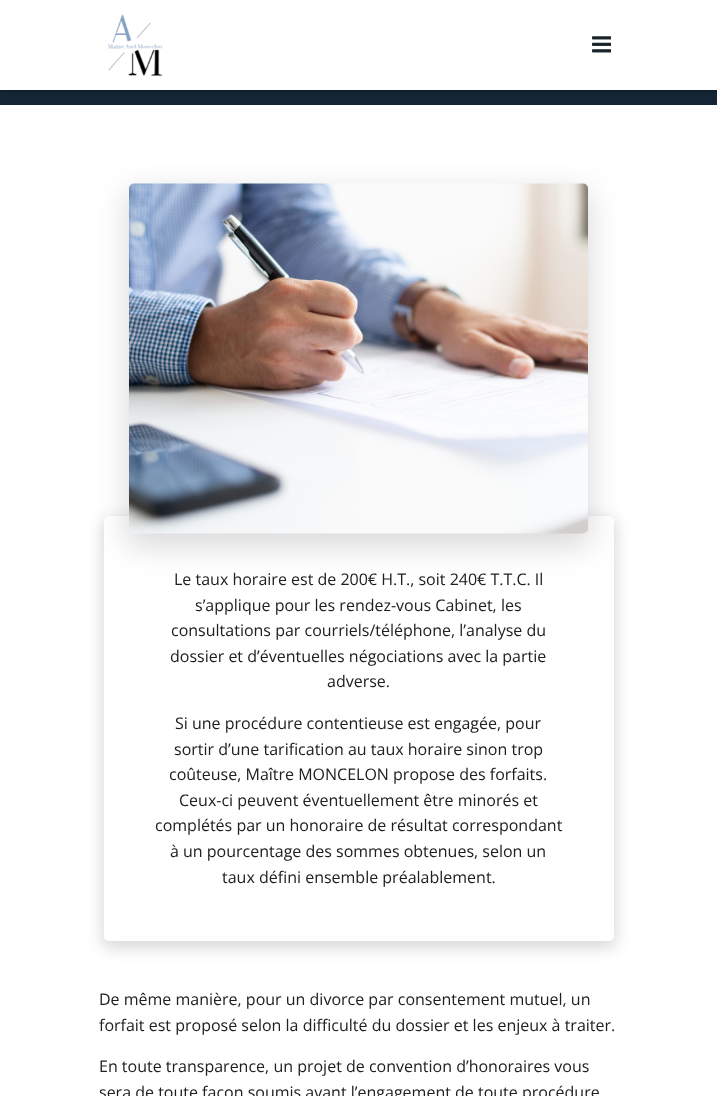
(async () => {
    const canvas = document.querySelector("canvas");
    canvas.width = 717;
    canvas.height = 1096;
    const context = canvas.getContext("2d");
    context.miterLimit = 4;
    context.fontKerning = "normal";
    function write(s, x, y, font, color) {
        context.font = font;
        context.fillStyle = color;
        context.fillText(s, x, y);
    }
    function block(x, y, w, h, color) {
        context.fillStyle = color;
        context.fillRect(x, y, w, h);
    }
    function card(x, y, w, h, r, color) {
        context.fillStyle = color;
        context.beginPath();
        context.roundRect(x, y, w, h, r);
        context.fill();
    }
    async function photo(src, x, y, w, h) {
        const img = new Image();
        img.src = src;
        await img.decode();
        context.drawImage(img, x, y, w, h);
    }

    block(0, 0, 717, 1096, "rgb(255, 255, 255)");
    block(0, 90, 717, 15, "rgb(20, 38, 53)");
    context.fillStyle = "rgba(0, 0, 0, 0.5)";
    context.filter = "blur(2px)";
    context.beginPath();
    context.rect(0, 0, 717, 90);
    context.fill();
    context.filter = "none";
    block(0, 0, 717, 90, "rgb(255, 255, 255)");
    await photo("media/1.png", 107, 14, 56, 62);
    await photo("media/2.png", 592, 36, 19, 17);
    context.fillStyle = "rgba(0, 0, 0, 0.15)";
    context.filter = "blur(7.5px)";
    context.beginPath();
    context.roundRect(102, 519, 514, 429, 7);
    context.fill();
    context.filter = "none";
    card(104, 516, 510, 425, 5, "rgb(255, 255, 255)");
    context.fillStyle = "rgba(0, 0, 0, 0.15)";
    context.filter = "blur(15px)";
    context.beginPath();
    context.roundRect(127, 192, 463, 354, 7);
    context.fill();
    context.filter = "none";
    await photo("media/3.png", 128, 183, 460, 351);
    write("Le taux horaire est de 200€ H.T., soit 240€ T.T.C. Il", 174, 585, "16px Open Sans", "rgb(32, 32, 34)");
    write("s’applique pour les rendez-vous Cabinet, les", 195, 611, "16px Open Sans", "rgb(32, 32, 34)");
    write("consultations par courriels/téléphone, l’analyse du", 171, 636, "16px Open Sans", "rgb(32, 32, 34)");
    write("dossier et d’éventuelles négociations avec la partie", 170, 662, "16px Open Sans", "rgb(32, 32, 34)");
    write("adverse.", 327, 687, "16px Open Sans", "rgb(32, 32, 34)");
    write("Si une procédure contentieuse est engagée, pour", 175, 729, "16px Open Sans", "rgb(32, 32, 34)");
    write("sortir d’une tarification au taux horaire sinon trop", 174, 755, "16px Open Sans", "rgb(32, 32, 34)");
    write("coûteuse, Maître MONCELON propose des forfaits.", 169, 780, "16px Open Sans", "rgb(32, 32, 34)");
    write("Ceux-ci peuvent éventuellement être minorés et", 179, 806, "16px Open Sans", "rgb(32, 32, 34)");
    write("complétés par un honoraire de résultat correspondant", 155, 831, "16px Open Sans", "rgb(32, 32, 34)");
    write("à un pourcentage des sommes obtenues, selon un", 170, 857, "16px Open Sans", "rgb(32, 32, 34)");
    write("taux défini ensemble préalablement.", 222, 883, "16px Open Sans", "rgb(32, 32, 34)");
    write("De même manière, pour un divorce par consentement mutuel, un", 99, 1005, "16px Open Sans", "rgb(32, 32, 34)");
    write("forfait est proposé selon la difficulté du dossier et les enjeux à traiter.", 99, 1031, "16px Open Sans", "rgb(32, 32, 34)");
    write("En toute transparence, un projet de convention d’honoraires vous", 99, 1072, "16px Open Sans", "rgb(32, 32, 34)");
    write("sera de toute façon soumis avant l’engagement de toute procédure", 99, 1098, "16px Open Sans", "rgb(32, 32, 34)");
})();
